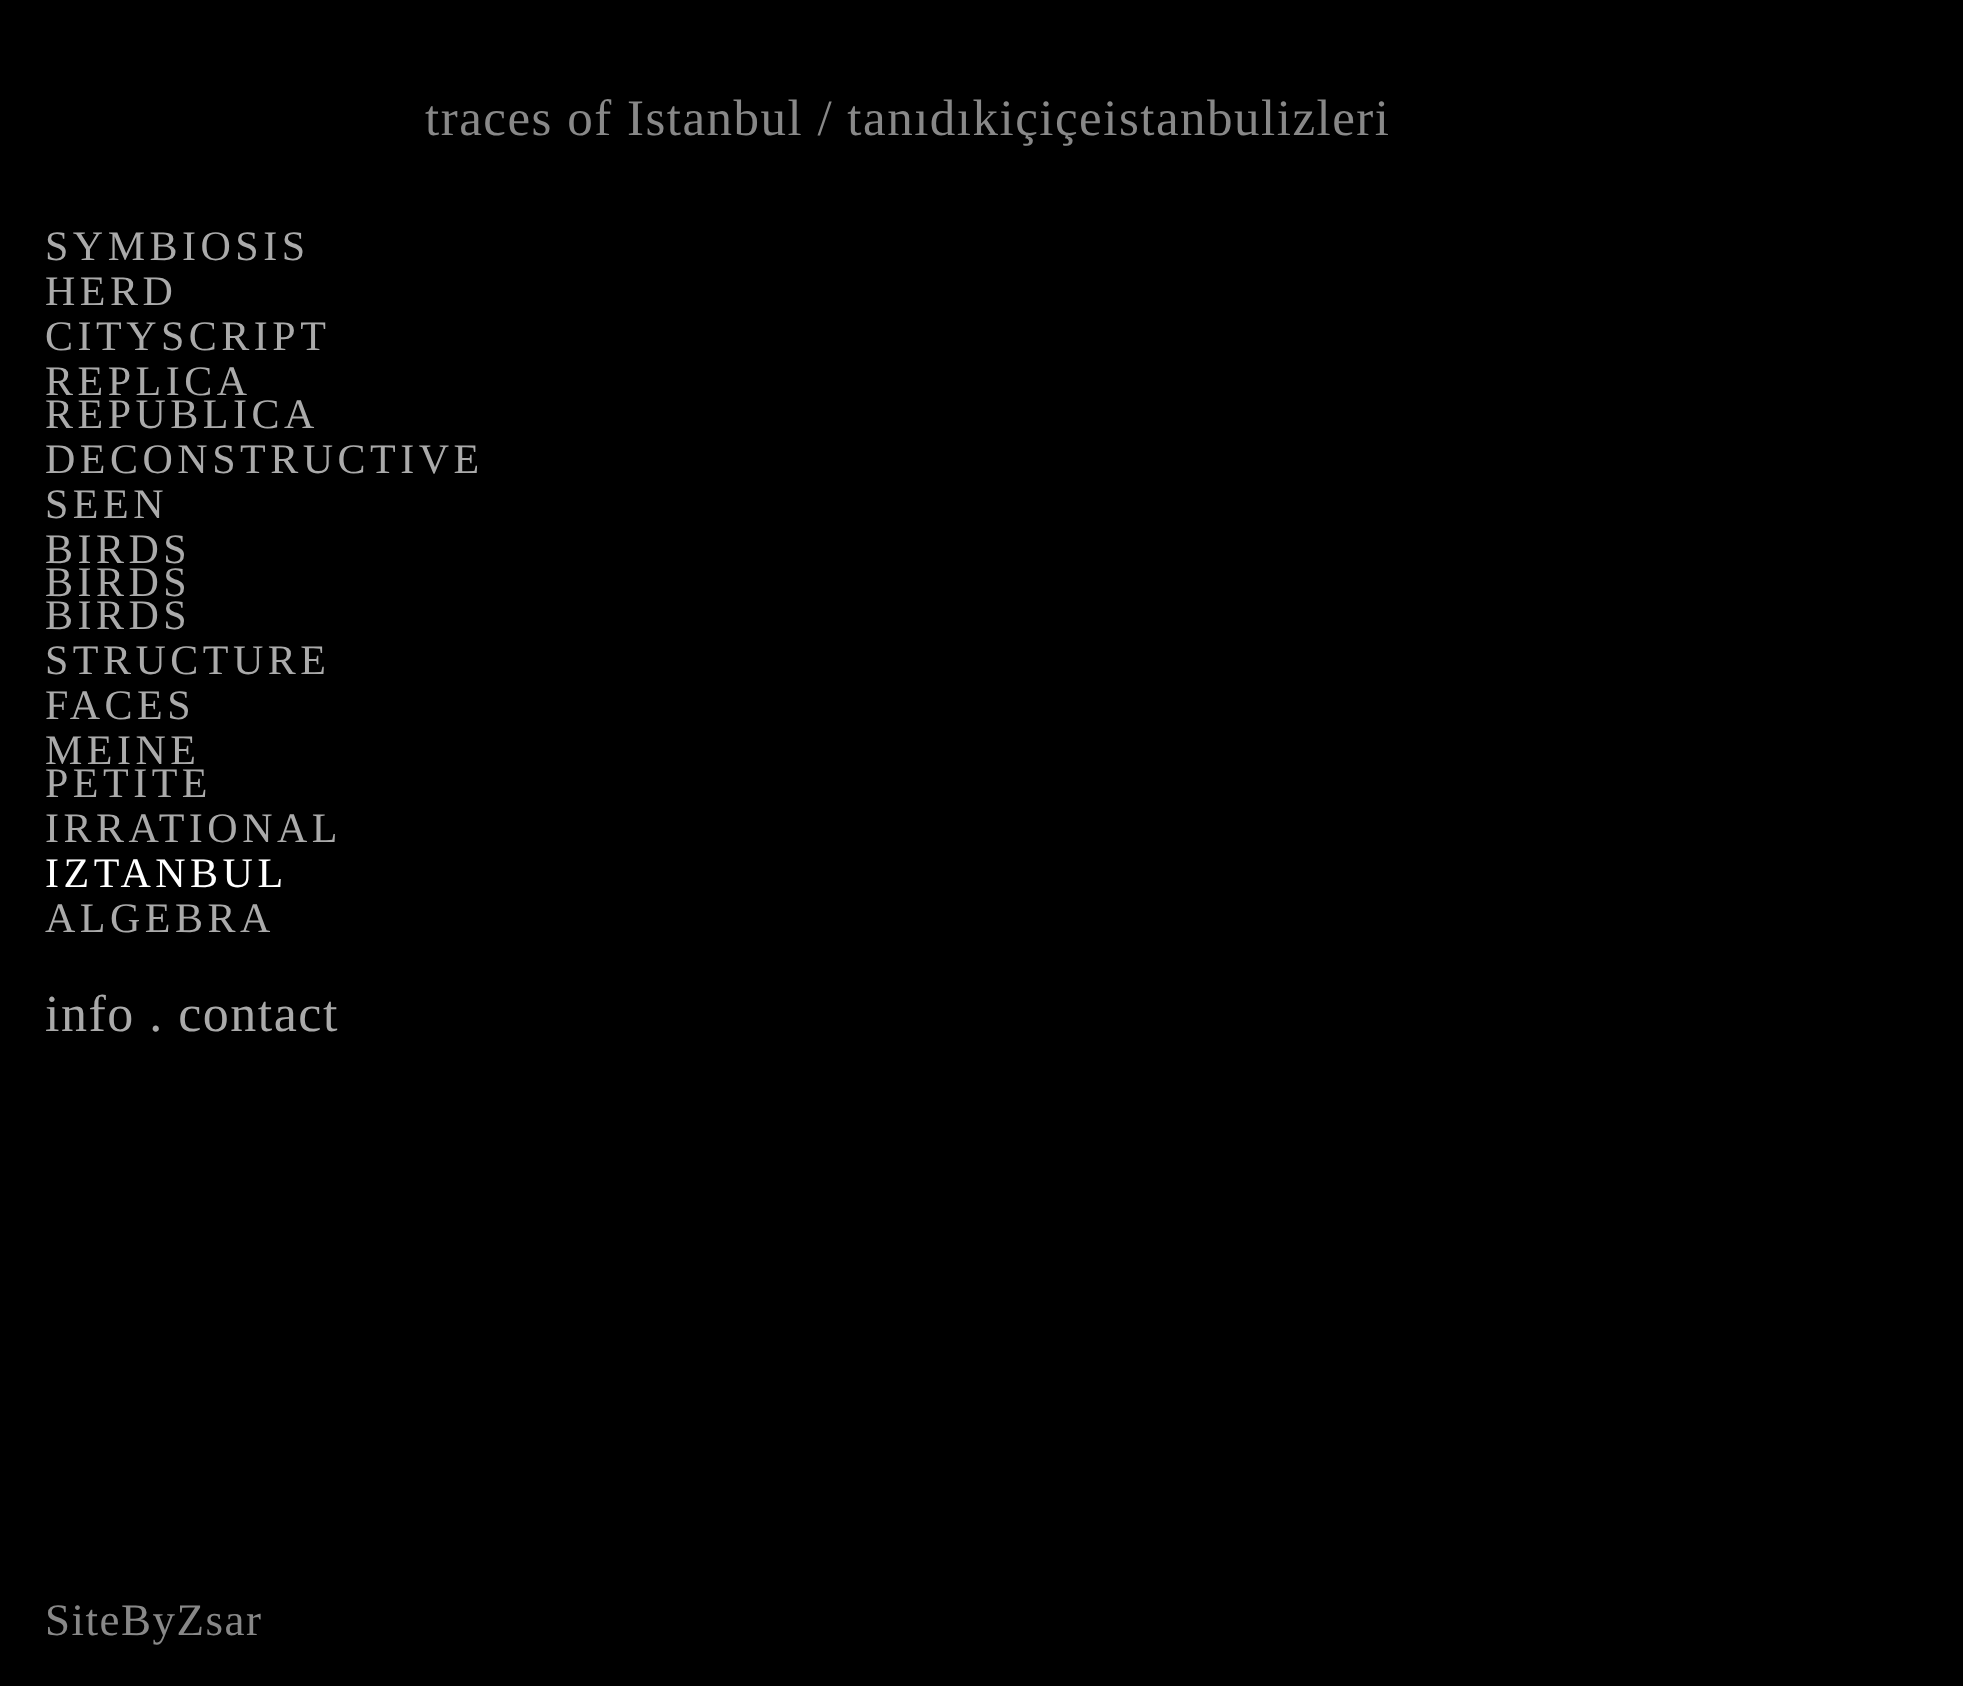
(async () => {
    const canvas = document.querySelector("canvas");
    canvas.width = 1963;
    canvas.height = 1686;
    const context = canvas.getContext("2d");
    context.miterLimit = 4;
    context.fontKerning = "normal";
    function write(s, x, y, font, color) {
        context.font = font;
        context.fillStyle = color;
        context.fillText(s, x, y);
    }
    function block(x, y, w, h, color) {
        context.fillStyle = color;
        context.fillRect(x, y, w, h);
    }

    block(0, 0, 1963, 1686, "rgb(0, 0, 0)");
    context.letterSpacing = "1.5px";
    write("traces of Istanbul / tanıdıkiçiçeistanbulizleri", 425, 135, "51px Liberation Serif", "rgb(136, 136, 136)");
    context.letterSpacing = "4.5px";
    write("SYMBIOSIS", 45, 260, "42px Liberation Serif", "rgb(170, 170, 170)");
    write("HERD", 45, 305, "42px Liberation Serif", "rgb(170, 170, 170)");
    write("CITYSCRIPT", 45, 350, "42px Liberation Serif", "rgb(170, 170, 170)");
    write("REPLICA", 45, 395, "42px Liberation Serif", "rgb(170, 170, 170)");
    write("REPUBLICA", 45, 428, "42px Liberation Serif", "rgb(170, 170, 170)");
    write("DECONSTRUCTIVE", 45, 473, "42px Liberation Serif", "rgb(170, 170, 170)");
    write("SEEN", 45, 518, "42px Liberation Serif", "rgb(170, 170, 170)");
    write("BIRDS", 45, 563, "42px Liberation Serif", "rgb(170, 170, 170)");
    write("BIRDS", 45, 596, "42px Liberation Serif", "rgb(170, 170, 170)");
    write("BIRDS", 45, 629, "42px Liberation Serif", "rgb(170, 170, 170)");
    write("STRUCTURE", 45, 674, "42px Liberation Serif", "rgb(170, 170, 170)");
    write("FACES", 45, 719, "42px Liberation Serif", "rgb(170, 170, 170)");
    write("MEINE", 45, 764, "42px Liberation Serif", "rgb(170, 170, 170)");
    write("PETITE", 45, 797, "42px Liberation Serif", "rgb(170, 170, 170)");
    write("IRRATIONAL", 45, 842, "42px Liberation Serif", "rgb(170, 170, 170)");
    write("IZTANBUL", 45, 887, "42px Liberation Serif", "rgb(255, 255, 255)");
    write("ALGEBRA", 45, 932, "42px Liberation Serif", "rgb(170, 170, 170)");
    context.letterSpacing = "1.5px";
    write("info . contact", 45, 1031, "52px Liberation Serif", "rgb(170, 170, 170)");
    write("SiteByZsar", 45, 1635, "45px Liberation Serif", "rgb(136, 136, 136)");
})();
